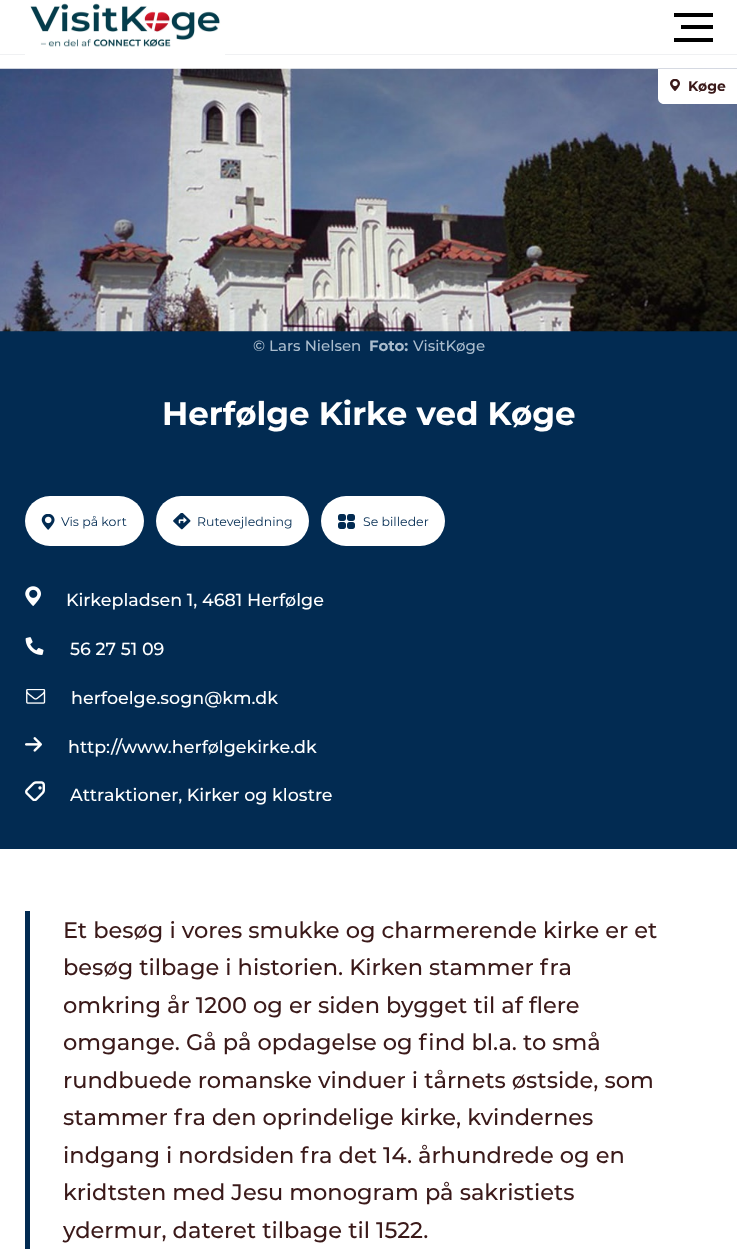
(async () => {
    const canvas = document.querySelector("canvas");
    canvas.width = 737;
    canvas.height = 1255;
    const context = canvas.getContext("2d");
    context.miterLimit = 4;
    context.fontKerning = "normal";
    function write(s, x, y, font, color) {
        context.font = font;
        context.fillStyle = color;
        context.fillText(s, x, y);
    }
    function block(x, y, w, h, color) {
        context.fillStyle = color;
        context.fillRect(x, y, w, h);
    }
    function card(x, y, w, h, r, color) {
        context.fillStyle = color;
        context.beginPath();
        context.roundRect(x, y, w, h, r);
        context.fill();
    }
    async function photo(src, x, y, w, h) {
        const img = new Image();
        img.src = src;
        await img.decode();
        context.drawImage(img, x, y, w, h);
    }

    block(0, 0, 737, 1255, "rgb(255, 255, 255)");
    block(0, 54, 737, 1, "rgb(240, 241, 243)");
    await photo("media/1.png", 25, 3, 200, 52);
    block(674, 13, 39, 4, "rgb(0, 0, 0)");
    block(681, 25, 32, 4, "rgb(0, 0, 0)");
    block(674, 38, 39, 4, "rgb(0, 0, 0)");
    block(0, 331, 737, 518, "rgb(2, 43, 82)");
    await photo("media/2.png", 0, 68, 737, 264);
    context.fillStyle = "rgb(255, 255, 255)";
    context.beginPath();
    context.moveTo(658, 69);
    context.lineTo(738, 69);
    context.lineTo(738, 104);
    context.lineTo(664, 104);
    context.bezierCurveTo(660.5, 104, 658, 101.5, 658, 98);
    context.closePath();
    context.fill();
    await photo("media/3.png", 670, 79, 10, 12);
    write("Køge", 688, 91, "bold 14px Montserrat", "rgb(58, 25, 25)");
    write("© Lars Nielsen", 253, 351, "500 15px Montserrat", "rgb(170, 188, 205)");
    write("Foto:", 369, 351, "bold 15px Montserrat", "rgb(170, 188, 205)");
    write("VisitKøge", 413, 351, "500 15px Montserrat", "rgb(170, 188, 205)");
    write("Herfølge Kirke ved Køge", 162, 425, "bold 32.5px Montserrat", "rgb(255, 255, 255)");
    card(25, 496, 119, 50, 25, "rgb(255, 255, 255)");
    await photo("media/4.png", 41, 514, 14, 16);
    write("Vis på kort", 61, 526, "12.5px Montserrat", "rgb(2, 43, 82)");
    card(156, 496, 153, 50, 25, "rgb(255, 255, 255)");
    await photo("media/5.png", 173, 513, 18, 17);
    write("Rutevejledning", 197, 526, "12.5px Montserrat", "rgb(2, 43, 82)");
    card(321, 496, 124, 50, 25, "rgb(255, 255, 255)");
    await photo("media/6.png", 338, 514, 17, 15);
    write("Se billeder", 363, 526, "12.5px Montserrat", "rgb(2, 43, 82)");
    await photo("media/7.png", 25, 586, 16, 20);
    write("Kirkepladsen 1, 4681 Herfølge", 66, 606, "500 17.5px Montserrat", "rgb(255, 255, 255)");
    await photo("media/8.png", 25, 637, 19, 18);
    write("56 27 51 09", 70, 655, "500 17.5px Montserrat", "rgb(255, 255, 255)");
    await photo("media/9.png", 26, 689, 20, 15);
    write("herfoelge.sogn@km.dk", 71, 704, "500 17.5px Montserrat", "rgb(255, 255, 255)");
    await photo("media/10.png", 25, 737, 17, 15);
    write("http://www.herfølgekirke.dk", 68, 753, "500 17.5px Montserrat", "rgb(255, 255, 255)");
    await photo("media/11.png", 25, 781, 20, 20);
    write("Attraktioner, Kirker og klostre", 70, 801, "500 17.5px Montserrat", "rgb(255, 255, 255)");
    block(25, 911, 5, 338, "rgb(2, 43, 82)");
    write("Et besøg i vores smukke og charmerende kirke er et", 63, 938, "500 22.5px Montserrat", "rgb(58, 25, 25)");
    write("besøg tilbage i historien. Kirken stammer fra", 63, 975, "500 22.5px Montserrat", "rgb(58, 25, 25)");
    write("omkring år 1200 og er siden bygget til af flere", 63, 1013, "500 22.5px Montserrat", "rgb(58, 25, 25)");
    write("omgange. Gå på opdagelse og find bl.a. to små", 63, 1050, "500 22.5px Montserrat", "rgb(58, 25, 25)");
    write("rundbuede romanske vinduer i tårnets østside, som", 63, 1088, "500 22.5px Montserrat", "rgb(58, 25, 25)");
    write("stammer fra den oprindelige kirke, kvindernes", 63, 1125, "500 22.5px Montserrat", "rgb(58, 25, 25)");
    write("indgang i nordsiden fra det 14. århundrede og en", 63, 1163, "500 22.5px Montserrat", "rgb(58, 25, 25)");
    write("kridtsten med Jesu monogram på sakristiets", 63, 1200, "500 22.5px Montserrat", "rgb(58, 25, 25)");
    write("ydermur, dateret tilbage til 1522.", 63, 1238, "500 22.5px Montserrat", "rgb(58, 25, 25)");
})();
